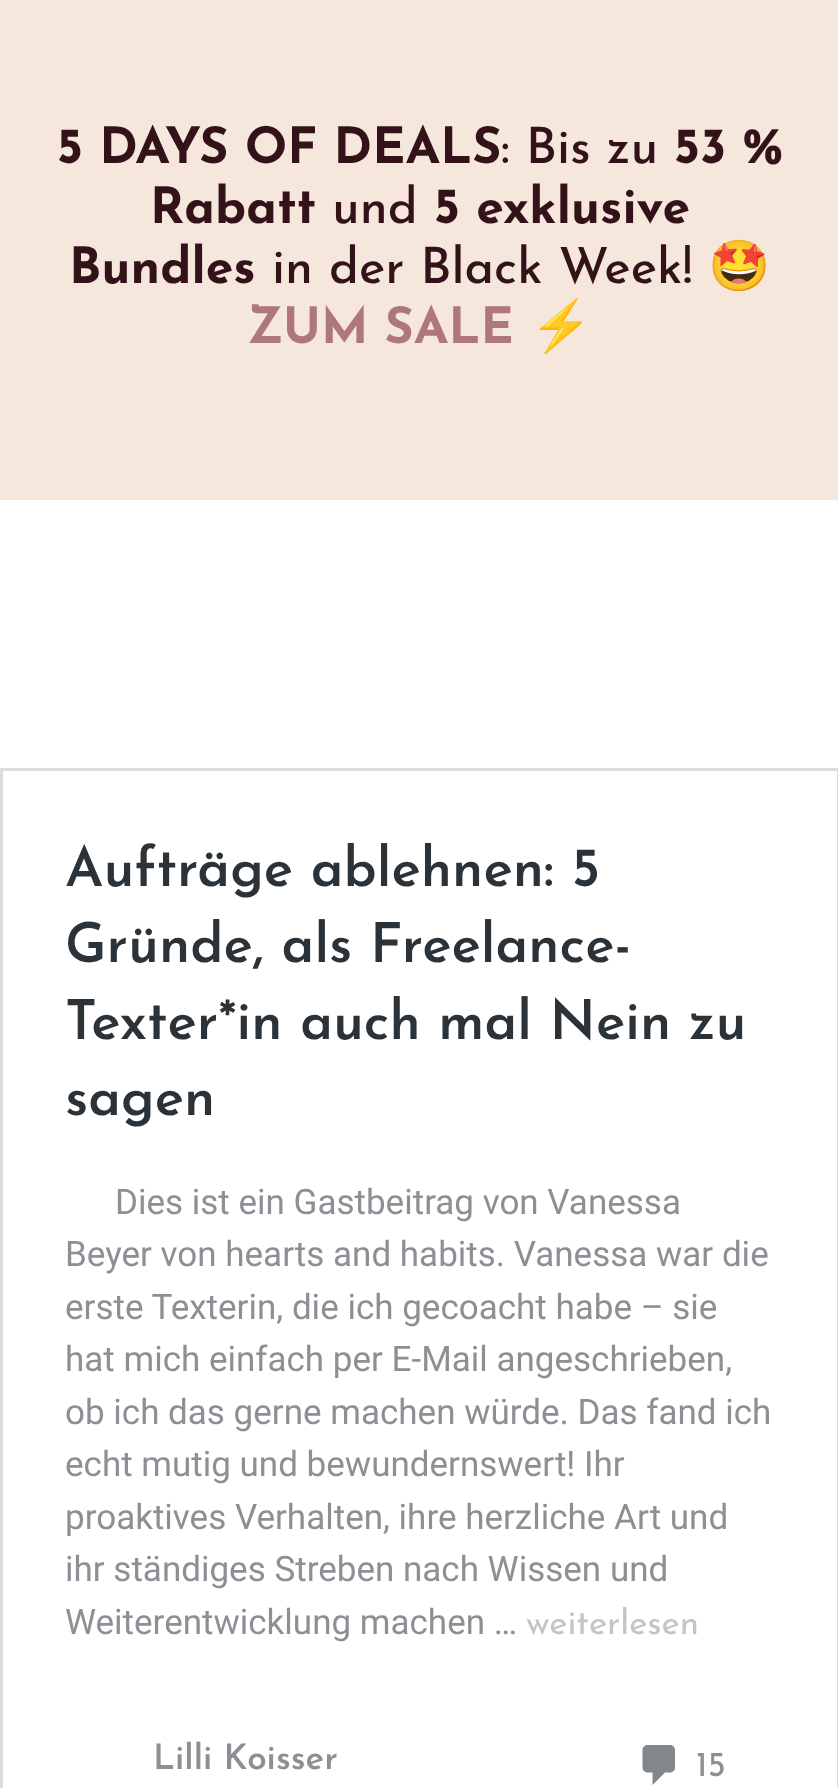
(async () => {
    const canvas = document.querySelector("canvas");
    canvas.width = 838;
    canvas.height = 1788;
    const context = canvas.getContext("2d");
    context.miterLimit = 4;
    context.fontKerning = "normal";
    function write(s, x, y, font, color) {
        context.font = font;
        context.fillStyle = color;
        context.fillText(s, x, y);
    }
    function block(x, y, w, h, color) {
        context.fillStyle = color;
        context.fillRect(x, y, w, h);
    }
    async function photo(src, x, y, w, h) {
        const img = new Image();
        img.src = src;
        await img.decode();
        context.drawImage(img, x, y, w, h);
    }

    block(0, 0, 838, 1788, "rgb(255, 255, 255)");
    block(0, 0, 838, 500, "rgb(246, 231, 220)");
    write("5 DAYS OF DEALS", 57, 163, "bold 50px Josefin Sans", "rgb(52, 18, 25)");
    write(": Bis zu", 501, 163, "500 50px Josefin Sans", "rgb(52, 18, 25)");
    write("53 %", 674, 163, "bold 50px Josefin Sans", "rgb(52, 18, 25)");
    write("Rabatt", 150, 223, "bold 50px Josefin Sans", "rgb(52, 18, 25)");
    write("und", 332, 223, "500 50px Josefin Sans", "rgb(52, 18, 25)");
    write("5 exklusive", 434, 223, "bold 50px Josefin Sans", "rgb(52, 18, 25)");
    write("Bundles", 69, 283, "bold 50px Josefin Sans", "rgb(52, 18, 25)");
    write("in der Black Week!", 272, 283, "500 50px Josefin Sans", "rgb(52, 18, 25)");
    write("🤩", 708, 283, "50px Noto Color Emoji", "rgb(52, 18, 25)");
    write("ZUM SALE", 247, 343, "bold 50px Josefin Sans", "rgb(175, 120, 120)");
    write("⚡️", 530, 343, "50px Noto Color Emoji", "rgb(52, 18, 25)");
    context.strokeStyle = "rgb(220, 220, 222)";
    context.lineWidth = 3;
    context.strokeRect(1.5, 769.5, 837, 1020);
    write("Aufträge ablehnen: 5", 65, 886, "600 55px Josefin Sans", "rgb(44, 51, 56)");
    write("Gründe, als Freelance-", 65, 962, "600 55px Josefin Sans", "rgb(44, 51, 56)");
    write("Texter*in auch mal Nein zu", 65, 1039, "600 55px Josefin Sans", "rgb(44, 51, 56)");
    write("sagen", 65, 1115, "600 55px Josefin Sans", "rgb(44, 51, 56)");
    write("Dies ist ein Gastbeitrag von Vanessa", 115, 1214, "35px Roboto", "rgb(140, 143, 148)");
    write("Beyer von hearts and habits. Vanessa war die", 65, 1266, "35px Roboto", "rgb(140, 143, 148)");
    write("erste Texterin, die ich gecoacht habe – sie", 65, 1319, "35px Roboto", "rgb(140, 143, 148)");
    write("hat mich einfach per E-Mail angeschrieben,", 65, 1371, "35px Roboto", "rgb(140, 143, 148)");
    write("ob ich das gerne machen würde. Das fand ich", 65, 1424, "35px Roboto", "rgb(140, 143, 148)");
    write("echt mutig und bewundernswert! Ihr", 65, 1476, "35px Roboto", "rgb(140, 143, 148)");
    write("proaktives Verhalten, ihre herzliche Art und", 65, 1529, "35px Roboto", "rgb(140, 143, 148)");
    write("ihr ständiges Streben nach Wissen und", 65, 1581, "35px Roboto", "rgb(140, 143, 148)");
    write("Weiterentwicklung machen …", 65, 1634, "35px Roboto", "rgb(140, 143, 148)");
    write("weiterlesen", 526, 1634, "35px Josefin Sans", "rgb(195, 196, 199)");
    write("Lilli Koisser", 153, 1769, "600 35px Josefin Sans", "rgb(140, 143, 148)");
    await photo("media/1.png", 642, 1745, 33, 40);
    write("15", 696, 1776, "35px Josefin Sans", "rgb(140, 143, 148)");
})();
